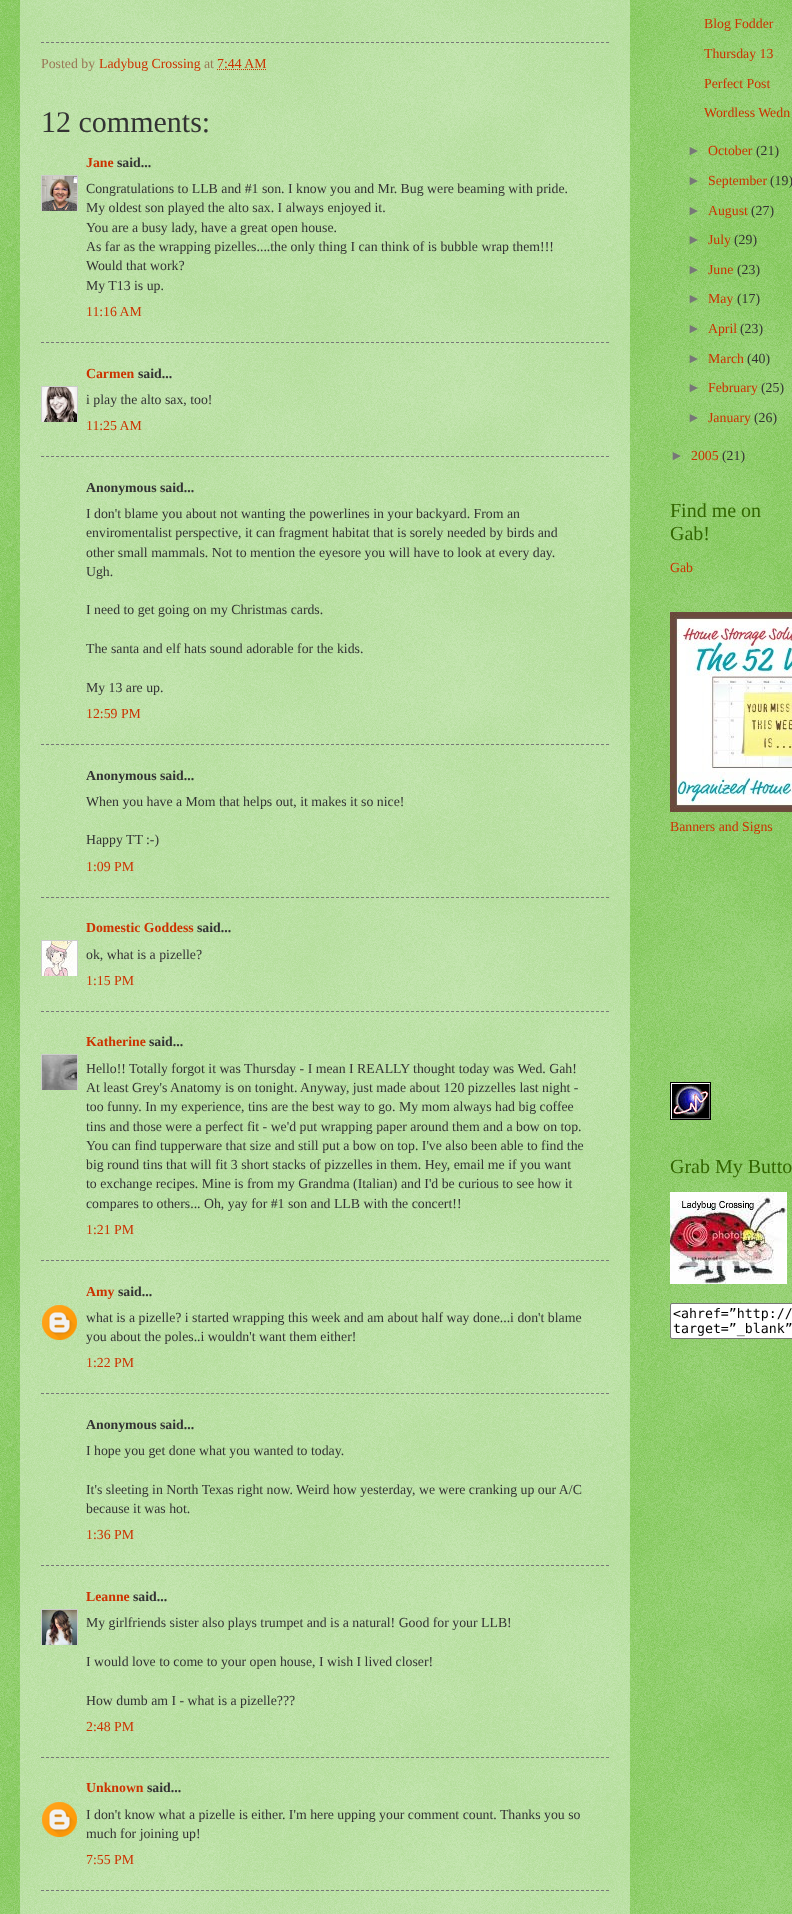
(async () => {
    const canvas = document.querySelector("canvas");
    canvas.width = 792;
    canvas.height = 1914;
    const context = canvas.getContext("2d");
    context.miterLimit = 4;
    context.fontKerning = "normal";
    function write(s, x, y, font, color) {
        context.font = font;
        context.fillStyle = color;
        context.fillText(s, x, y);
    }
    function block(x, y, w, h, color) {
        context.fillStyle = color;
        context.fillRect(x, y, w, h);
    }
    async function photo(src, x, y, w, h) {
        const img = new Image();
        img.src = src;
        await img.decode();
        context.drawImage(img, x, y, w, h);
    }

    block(0, 0, 792, 1914, "rgb(102, 187, 51)");
    await photo("media/1.png", 0, 0, 792, 1914);
    block(20, 0, 610, 1914, "rgba(255, 255, 255, 0.4)");
    context.beginPath();
    context.moveTo(41, 42.5);
    context.lineTo(609, 42.5);
    context.strokeStyle = "rgb(119, 119, 119)";
    context.setLineDash([3, 2]);
    context.stroke();
    write("Posted by", 41, 68, "13.8px Liberation Serif", "rgb(153, 119, 85)");
    write("Ladybug Crossing", 99, 68, "13.8px Liberation Serif", "rgb(204, 51, 0)");
    write("at", 204, 68, "13.8px Liberation Serif", "rgb(153, 119, 85)");
    write("7:44 AM", 217, 68, "13.8px Liberation Serif", "rgb(204, 51, 0)");
    context.beginPath();
    context.moveTo(217, 69.5);
    context.lineTo(266.5, 69.5);
    context.strokeStyle = "rgb(204, 51, 0)";
    context.setLineDash([1, 1]);
    context.stroke();
    write("12 comments:", 41, 132, "30px Liberation Serif", "rgb(51, 51, 51)");
    write("Jane", 86, 167, "bold 13.8px Liberation Serif", "rgb(204, 51, 0)");
    write("said...", 117, 167, "bold 13.8px Liberation Serif", "rgb(51, 51, 51)");
    context.save();
    context.beginPath();
    context.rect(41, 175, 37, 36);
    context.clip();
    context.strokeStyle = "rgb(204, 204, 204)";
    context.setLineDash([]);
    context.strokeRect(41.5, 175.5, 36, 36);
    context.restore();
    await photo("media/2.png", 42, 176, 35, 35);
    write("Congratulations to LLB and #1 son. I know you and Mr. Bug were beaming with pride.", 86, 193, "13.8px Liberation Serif", "rgb(51, 51, 51)");
    write("My oldest son played the alto sax. I always enjoyed it.", 86, 212, "13.8px Liberation Serif", "rgb(51, 51, 51)");
    write("You are a busy lady, have a great open house.", 86, 232, "13.8px Liberation Serif", "rgb(51, 51, 51)");
    write("As far as the wrapping pizelles....the only thing I can think of is bubble wrap them!!!", 86, 251, "13.8px Liberation Serif", "rgb(51, 51, 51)");
    write("Would that work?", 86, 270, "13.8px Liberation Serif", "rgb(51, 51, 51)");
    write("My T13 is up.", 86, 290, "13.8px Liberation Serif", "rgb(51, 51, 51)");
    write("11:16 AM", 86, 316, "13.8px Liberation Serif", "rgb(204, 51, 0)");
    context.beginPath();
    context.moveTo(41, 342.5);
    context.lineTo(609, 342.5);
    context.strokeStyle = "rgb(119, 119, 119)";
    context.setLineDash([3, 2]);
    context.stroke();
    write("Carmen", 86, 378, "bold 13.8px Liberation Serif", "rgb(204, 51, 0)");
    write("said...", 138, 378, "bold 13.8px Liberation Serif", "rgb(51, 51, 51)");
    context.save();
    context.beginPath();
    context.rect(41, 386, 37, 36);
    context.clip();
    context.strokeStyle = "rgb(204, 204, 204)";
    context.setLineDash([]);
    context.strokeRect(41.5, 386.5, 36, 36);
    context.restore();
    await photo("media/3.png", 42, 387, 35, 35);
    write("i play the alto sax, too!", 86, 404, "13.8px Liberation Serif", "rgb(51, 51, 51)");
    write("11:25 AM", 86, 430, "13.8px Liberation Serif", "rgb(204, 51, 0)");
    context.beginPath();
    context.moveTo(41, 456.5);
    context.lineTo(609, 456.5);
    context.stroke();
    write("Anonymous said...", 86, 492, "bold 13.8px Liberation Serif", "rgb(51, 51, 51)");
    write("I don't blame you about not wanting the powerlines in your backyard. From an", 86, 518, "13.8px Liberation Serif", "rgb(51, 51, 51)");
    write("enviromentalist perspective, it can fragment habitat that is sorely needed by birds and", 86, 537, "13.8px Liberation Serif", "rgb(51, 51, 51)");
    write("other small mammals. Not to mention the eyesore you will have to look at every day.", 86, 557, "13.8px Liberation Serif", "rgb(51, 51, 51)");
    write("Ugh.", 86, 576, "13.8px Liberation Serif", "rgb(51, 51, 51)");
    write("I need to get going on my Christmas cards.", 86, 614, "13.8px Liberation Serif", "rgb(51, 51, 51)");
    write("The santa and elf hats sound adorable for the kids.", 86, 653, "13.8px Liberation Serif", "rgb(51, 51, 51)");
    write("My 13 are up.", 86, 692, "13.8px Liberation Serif", "rgb(51, 51, 51)");
    write("12:59 PM", 86, 718, "13.8px Liberation Serif", "rgb(204, 51, 0)");
    context.beginPath();
    context.moveTo(41, 744.5);
    context.lineTo(609, 744.5);
    context.stroke();
    write("Anonymous said...", 86, 780, "bold 13.8px Liberation Serif", "rgb(51, 51, 51)");
    write("When you have a Mom that helps out, it makes it so nice!", 86, 806, "13.8px Liberation Serif", "rgb(51, 51, 51)");
    write("Happy TT :-)", 86, 844, "13.8px Liberation Serif", "rgb(51, 51, 51)");
    write("1:09 PM", 86, 871, "13.8px Liberation Serif", "rgb(204, 51, 0)");
    context.beginPath();
    context.moveTo(41, 897.5);
    context.lineTo(609, 897.5);
    context.stroke();
    write("Domestic Goddess", 86, 932, "bold 13.8px Liberation Serif", "rgb(204, 51, 0)");
    write("said...", 197, 932, "bold 13.8px Liberation Serif", "rgb(51, 51, 51)");
    context.save();
    context.beginPath();
    context.rect(41, 940, 37, 36);
    context.clip();
    context.strokeStyle = "rgb(204, 204, 204)";
    context.setLineDash([]);
    context.strokeRect(41.5, 940.5, 36, 36);
    context.restore();
    await photo("media/4.png", 42, 941, 35, 35);
    write("ok, what is a pizelle?", 86, 959, "13.8px Liberation Serif", "rgb(51, 51, 51)");
    write("1:15 PM", 86, 985, "13.8px Liberation Serif", "rgb(204, 51, 0)");
    context.beginPath();
    context.moveTo(41, 1011.5);
    context.lineTo(609, 1011.5);
    context.stroke();
    write("Katherine", 86, 1046, "bold 13.8px Liberation Serif", "rgb(204, 51, 0)");
    write("said...", 149, 1046, "bold 13.8px Liberation Serif", "rgb(51, 51, 51)");
    context.save();
    context.beginPath();
    context.rect(41, 1054, 37, 36);
    context.clip();
    context.strokeStyle = "rgb(204, 204, 204)";
    context.setLineDash([]);
    context.strokeRect(41.5, 1054.5, 36, 36);
    context.restore();
    await photo("media/5.png", 42, 1055, 35, 35);
    write("Hello!! Totally forgot it was Thursday - I mean I REALLY thought today was Wed. Gah!", 86, 1073, "13.8px Liberation Serif", "rgb(51, 51, 51)");
    write("At least Grey's Anatomy is on tonight. Anyway, just made about 120 pizzelles last night -", 86, 1092, "13.8px Liberation Serif", "rgb(51, 51, 51)");
    write("too funny. In my experience, tins are the best way to go. My mom always had big coffee", 86, 1111, "13.8px Liberation Serif", "rgb(51, 51, 51)");
    write("tins and those were a perfect fit - we'd put wrapping paper around them and a bow on top.", 86, 1131, "13.8px Liberation Serif", "rgb(51, 51, 51)");
    write("You can find tupperware that size and still put a bow on top. I've also been able to find the", 86, 1150, "13.8px Liberation Serif", "rgb(51, 51, 51)");
    write("big round tins that will fit 3 short stacks of pizzelles in them. Hey, email me if you want", 86, 1169, "13.8px Liberation Serif", "rgb(51, 51, 51)");
    write("to exchange recipes. Mine is from my Grandma (Italian) and I'd be curious to see how it", 86, 1188, "13.8px Liberation Serif", "rgb(51, 51, 51)");
    write("compares to others... Oh, yay for #1 son and LLB with the concert!!", 86, 1208, "13.8px Liberation Serif", "rgb(51, 51, 51)");
    write("1:21 PM", 86, 1234, "13.8px Liberation Serif", "rgb(204, 51, 0)");
    context.beginPath();
    context.moveTo(41, 1260.5);
    context.lineTo(609, 1260.5);
    context.stroke();
    write("Amy", 86, 1296, "bold 13.8px Liberation Serif", "rgb(204, 51, 0)");
    write("said...", 118, 1296, "bold 13.8px Liberation Serif", "rgb(51, 51, 51)");
    await photo("media/6.png", 42, 1305, 35, 35);
    write("what is a pizelle? i started wrapping this week and am about half way done...i don't blame", 86, 1322, "13.8px Liberation Serif", "rgb(51, 51, 51)");
    write("you about the poles..i wouldn't want them either!", 86, 1341, "13.8px Liberation Serif", "rgb(51, 51, 51)");
    write("1:22 PM", 86, 1367, "13.8px Liberation Serif", "rgb(204, 51, 0)");
    context.beginPath();
    context.moveTo(41, 1393.5);
    context.lineTo(609, 1393.5);
    context.stroke();
    write("Anonymous said...", 86, 1429, "bold 13.8px Liberation Serif", "rgb(51, 51, 51)");
    write("I hope you get done what you wanted to today.", 86, 1455, "13.8px Liberation Serif", "rgb(51, 51, 51)");
    write("It's sleeting in North Texas right now. Weird how yesterday, we were cranking up our A/C", 86, 1494, "13.8px Liberation Serif", "rgb(51, 51, 51)");
    write("because it was hot.", 86, 1513, "13.8px Liberation Serif", "rgb(51, 51, 51)");
    write("1:36 PM", 86, 1539, "13.8px Liberation Serif", "rgb(204, 51, 0)");
    context.beginPath();
    context.moveTo(41, 1565.5);
    context.lineTo(609, 1565.5);
    context.stroke();
    write("Leanne", 86, 1601, "bold 13.8px Liberation Serif", "rgb(204, 51, 0)");
    write("said...", 133, 1601, "bold 13.8px Liberation Serif", "rgb(51, 51, 51)");
    context.save();
    context.beginPath();
    context.rect(41, 1609, 37, 36);
    context.clip();
    context.strokeStyle = "rgb(204, 204, 204)";
    context.setLineDash([]);
    context.strokeRect(41.5, 1609.5, 36, 36);
    context.restore();
    await photo("media/7.png", 42, 1610, 35, 35);
    write("My girlfriends sister also plays trumpet and is a natural! Good for your LLB!", 86, 1627, "13.8px Liberation Serif", "rgb(51, 51, 51)");
    write("I would love to come to your open house, I wish I lived closer!", 86, 1666, "13.8px Liberation Serif", "rgb(51, 51, 51)");
    write("How dumb am I - what is a pizelle???", 86, 1705, "13.8px Liberation Serif", "rgb(51, 51, 51)");
    write("2:48 PM", 86, 1731, "13.8px Liberation Serif", "rgb(204, 51, 0)");
    context.beginPath();
    context.moveTo(41, 1757.5);
    context.lineTo(609, 1757.5);
    context.stroke();
    write("Unknown", 86, 1792, "bold 13.8px Liberation Serif", "rgb(204, 51, 0)");
    write("said...", 147, 1792, "bold 13.8px Liberation Serif", "rgb(51, 51, 51)");
    await photo("media/8.png", 42, 1802, 35, 35);
    write("I don't know what a pizelle is either. I'm here upping your comment count. Thanks you so", 86, 1819, "13.8px Liberation Serif", "rgb(51, 51, 51)");
    write("much for joining up!", 86, 1838, "13.8px Liberation Serif", "rgb(51, 51, 51)");
    write("7:55 PM", 86, 1864, "13.8px Liberation Serif", "rgb(204, 51, 0)");
    context.beginPath();
    context.moveTo(41, 1890.5);
    context.lineTo(609, 1890.5);
    context.stroke();
    write("Blog Fodder", 704, 28, "13.8px Liberation Serif", "rgb(204, 51, 0)");
    write("Thursday 13", 704, 58, "13.8px Liberation Serif", "rgb(204, 51, 0)");
    write("Perfect Post", 704, 88, "13.8px Liberation Serif", "rgb(204, 51, 0)");
    write("Wordless Wedn", 704, 117, "13.8px Liberation Serif", "rgb(204, 51, 0)");
    write("►", 687, 155, "13.8px Liberation Sans", "rgb(119, 119, 119)");
    write("October", 708, 155, "13.8px Liberation Serif", "rgb(204, 51, 0)");
    write("(21)", 756, 155, "13.8px Liberation Serif", "rgb(51, 51, 51)");
    write("►", 687, 185, "13.8px Liberation Sans", "rgb(119, 119, 119)");
    write("September", 708, 185, "13.8px Liberation Serif", "rgb(204, 51, 0)");
    write("(19)", 770, 185, "13.8px Liberation Serif", "rgb(51, 51, 51)");
    write("►", 687, 215, "13.8px Liberation Sans", "rgb(119, 119, 119)");
    write("August", 708, 215, "13.8px Liberation Serif", "rgb(204, 51, 0)");
    write("(27)", 751, 215, "13.8px Liberation Serif", "rgb(51, 51, 51)");
    write("►", 687, 244, "13.8px Liberation Sans", "rgb(119, 119, 119)");
    write("July", 708, 244, "13.8px Liberation Serif", "rgb(204, 51, 0)");
    write("(29)", 734, 244, "13.8px Liberation Serif", "rgb(51, 51, 51)");
    write("►", 687, 274, "13.8px Liberation Sans", "rgb(119, 119, 119)");
    write("June", 708, 274, "13.8px Liberation Serif", "rgb(204, 51, 0)");
    write("(23)", 737, 274, "13.8px Liberation Serif", "rgb(51, 51, 51)");
    write("►", 687, 303, "13.8px Liberation Sans", "rgb(119, 119, 119)");
    write("May", 708, 303, "13.8px Liberation Serif", "rgb(204, 51, 0)");
    write("(17)", 737, 303, "13.8px Liberation Serif", "rgb(51, 51, 51)");
    write("►", 687, 333, "13.8px Liberation Sans", "rgb(119, 119, 119)");
    write("April", 708, 333, "13.8px Liberation Serif", "rgb(204, 51, 0)");
    write("(23)", 740, 333, "13.8px Liberation Serif", "rgb(51, 51, 51)");
    write("►", 687, 363, "13.8px Liberation Sans", "rgb(119, 119, 119)");
    write("March", 708, 363, "13.8px Liberation Serif", "rgb(204, 51, 0)");
    write("(40)", 747, 363, "13.8px Liberation Serif", "rgb(51, 51, 51)");
    write("►", 687, 392, "13.8px Liberation Sans", "rgb(119, 119, 119)");
    write("February", 708, 392, "13.8px Liberation Serif", "rgb(204, 51, 0)");
    write("(25)", 761, 392, "13.8px Liberation Serif", "rgb(51, 51, 51)");
    write("►", 687, 422, "13.8px Liberation Sans", "rgb(119, 119, 119)");
    write("January", 708, 422, "13.8px Liberation Serif", "rgb(204, 51, 0)");
    write("(26)", 754, 422, "13.8px Liberation Serif", "rgb(51, 51, 51)");
    write("►", 670, 460, "13.8px Liberation Sans", "rgb(119, 119, 119)");
    write("2005", 691, 460, "13.8px Liberation Serif", "rgb(204, 51, 0)");
    write("(21)", 722, 460, "13.8px Liberation Serif", "rgb(51, 51, 51)");
    write("Find me on", 670, 517, "20px Liberation Serif", "rgb(51, 102, 0)");
    write("Gab!", 670, 540, "20px Liberation Serif", "rgb(51, 102, 0)");
    write("Gab", 670, 572, "13.8px Liberation Serif", "rgb(204, 51, 0)");
    await photo("media/9.png", 670, 612, 122, 200);
    write("Banners and Signs", 670, 831, "13.8px Liberation Serif", "rgb(204, 51, 0)");
    await photo("media/10.png", 670, 1082, 41, 38);
    write("Grab My Butto", 670, 1173, "20px Liberation Serif", "rgb(51, 102, 0)");
    await photo("media/11.png", 670, 1192, 117, 92);
    context.fillStyle = "rgb(255, 255, 255)";
    context.beginPath();
    context.roundRect(670.5, 1303.5, 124, 35, 1.5);
    context.fill();
    context.strokeStyle = "rgb(118, 118, 118)";
    context.setLineDash([]);
    context.stroke();
    write("<ahref=”http://", 673, 1318, "13.25px DejaVu Sans Mono", "rgb(0, 0, 0)");
    write("target=”_blank”", 673, 1333, "13.25px DejaVu Sans Mono", "rgb(0, 0, 0)");
})();
